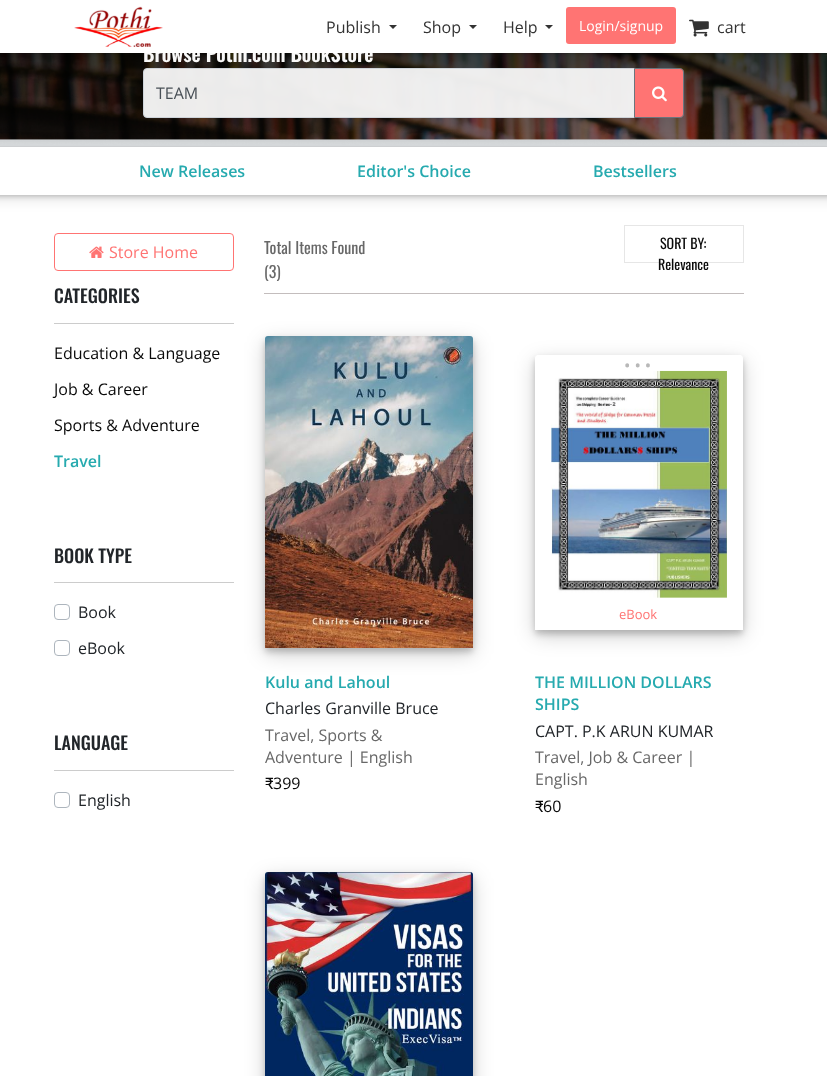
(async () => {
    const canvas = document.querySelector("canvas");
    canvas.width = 827;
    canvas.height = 1076;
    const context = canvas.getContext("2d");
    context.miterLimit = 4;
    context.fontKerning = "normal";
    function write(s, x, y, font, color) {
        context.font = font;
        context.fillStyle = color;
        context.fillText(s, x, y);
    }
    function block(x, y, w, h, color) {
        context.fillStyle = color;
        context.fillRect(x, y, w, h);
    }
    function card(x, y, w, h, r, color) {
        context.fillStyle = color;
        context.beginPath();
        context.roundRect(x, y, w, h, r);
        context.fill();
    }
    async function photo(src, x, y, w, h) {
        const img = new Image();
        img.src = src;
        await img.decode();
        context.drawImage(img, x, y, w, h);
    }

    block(0, 0, 827, 1076, "rgb(255, 255, 255)");
    block(0, 139, 827, 8, "rgb(236, 239, 241)");
    await photo("media/3.png", 0, 53, 827, 92);
    context.fillStyle = "rgba(0, 0, 0, 0.2)";
    context.filter = "blur(1.5px)";
    context.beginPath();
    context.rect(0, 1, 827, 53);
    context.fill();
    context.filter = "none";
    write("Browse Pothi.com BookStore", 143, 62, "600 20px Oswald", "rgb(249, 249, 249)");
    block(0, 0, 827, 53, "rgb(255, 255, 255)");
    await photo("media/1.png", 74, 6, 89, 41);
    write("Publish", 326, 33, "16px Open Sans", "rgb(51, 51, 51)");
    context.beginPath();
    context.moveTo(389, 25);
    context.lineTo(397, 25);
    context.lineTo(393, 29);
    context.closePath();
    context.fill();
    write("Shop", 423, 33, "16px Open Sans", "rgb(51, 51, 51)");
    context.beginPath();
    context.moveTo(469, 25);
    context.lineTo(477, 25);
    context.lineTo(473, 29);
    context.closePath();
    context.fill();
    write("Help", 503, 33, "16px Open Sans", "rgb(51, 51, 51)");
    context.beginPath();
    context.moveTo(545, 25);
    context.lineTo(553, 25);
    context.lineTo(549, 29);
    context.closePath();
    context.fill();
    card(566, 7, 110, 37, 3, "rgb(255, 116, 115)");
    write("Login/signup", 579, 31, "14px Open Sans", "rgb(255, 255, 255)");
    await photo("media/2.png", 689, 19, 20, 18);
    write("cart", 717, 33, "16px Open Sans", "rgb(51, 51, 51)");
    context.fillStyle = "rgba(248, 248, 248, 0.95)";
    context.beginPath();
    context.roundRect(143.5, 68.5, 491, 49, [3.5, 0, 0, 3.5]);
    context.fill();
    context.strokeStyle = "rgb(206, 212, 218)";
    context.stroke();
    write("TEAM", 156, 99, "16px Open Sans", "rgb(73, 80, 87)");
    context.fillStyle = "rgb(255, 116, 115)";
    context.beginPath();
    context.roundRect(634.5, 68.5, 49, 49, [0, 3.5, 3.5, 0]);
    context.fill();
    context.strokeStyle = "rgb(108, 117, 125)";
    context.stroke();
    await photo("media/4.png", 652, 86, 15, 16);
    context.fillStyle = "rgba(0, 0, 0, 0.19)";
    context.filter = "blur(7.5px)";
    context.beginPath();
    context.rect(-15, 148, 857, 48);
    context.fill();
    context.filter = "none";
    context.fillStyle = "rgba(0, 0, 0, 0.2)";
    context.filter = "blur(2.5px)";
    context.beginPath();
    context.rect(-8, 148, 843, 48);
    context.fill();
    context.filter = "none";
    block(0, 147, 827, 48, "rgb(255, 255, 255)");
    write("New Releases", 139, 177, "600 16px Open Sans", "rgb(38, 170, 175)");
    write("Editor's Choice", 357, 177, "600 16px Open Sans", "rgb(38, 170, 175)");
    write("Bestsellers", 593, 177, "600 16px Open Sans", "rgb(38, 170, 175)");
    context.beginPath();
    context.roundRect(54.5, 233.5, 179, 37, 3.5);
    context.strokeStyle = "rgb(255, 116, 115)";
    context.stroke();
    await photo("media/5.png", 89, 246, 15, 12);
    write("Store Home", 109, 258, "16px Open Sans", "rgb(255, 116, 115)");
    write("CATEGORIES", 54, 303, "500 18px Oswald", "rgb(33, 37, 41)");
    block(54, 323, 180, 1, "rgb(204, 204, 204)");
    write("Education & Language", 54, 359, "16px Open Sans", "rgb(10, 10, 10)");
    write("Job & Career", 54, 395, "16px Open Sans", "rgb(10, 10, 10)");
    write("Sports & Adventure", 54, 431, "16px Open Sans", "rgb(10, 10, 10)");
    write("Travel", 54, 467, "600 16px Open Sans", "rgb(38, 170, 175)");
    write("BOOK TYPE", 54, 563, "500 18px Oswald", "rgb(33, 37, 41)");
    block(54, 582, 180, 1, "rgb(204, 204, 204)");
    context.beginPath();
    context.roundRect(54.5, 604.5, 15, 15, 3.5);
    context.strokeStyle = "rgb(173, 181, 189)";
    context.stroke();
    write("Book", 78, 618, "16px Open Sans", "rgb(33, 37, 41)");
    context.beginPath();
    context.roundRect(54.5, 640.5, 15, 15, 3.5);
    context.stroke();
    write("eBook", 78, 654, "16px Open Sans", "rgb(33, 37, 41)");
    write("LANGUAGE", 54, 750, "500 18px Oswald", "rgb(33, 37, 41)");
    block(54, 770, 180, 1, "rgb(204, 204, 204)");
    context.beginPath();
    context.roundRect(54.5, 792.5, 15, 15, 3.5);
    context.stroke();
    write("English", 78, 806, "16px Open Sans", "rgb(33, 37, 41)");
    block(264, 293, 480, 1, "rgb(195, 189, 189)");
    write("Total Items Found", 264, 254, "16px Oswald", "rgb(104, 104, 104)");
    write("(3)", 264, 278, "16px Oswald", "rgb(104, 104, 104)");
    context.strokeStyle = "rgb(230, 230, 230)";
    context.strokeRect(624.5, 225.5, 119, 37);
    write("SORT BY:", 660, 249, "14px Oswald", "rgb(10, 10, 10)");
    write("Relevance", 658, 270, "14px Oswald", "rgb(10, 10, 10)");
    context.fillStyle = "rgba(0, 0, 0, 0.19)";
    context.filter = "blur(10px)";
    context.beginPath();
    context.roundRect(265, 342, 208, 312, 3);
    context.fill();
    context.filter = "none";
    context.fillStyle = "rgba(0, 0, 0, 0.2)";
    context.filter = "blur(3px)";
    context.beginPath();
    context.roundRect(265, 340, 208, 312, 3);
    context.fill();
    context.filter = "none";
    await photo("media/6.png", 265, 336, 208, 312);
    write("Kulu and Lahoul", 265, 688, "600 16px Open Sans", "rgb(38, 170, 175)");
    write("Charles Granville Bruce", 265, 714, "16px Open Sans", "rgb(33, 37, 41)");
    write("Travel, Sports &", 265, 741, "16px Open Sans", "rgb(104, 104, 104)");
    write("Adventure | English", 265, 763, "16px Open Sans", "rgb(104, 104, 104)");
    write("₹", 265, 789, "16px Cabin", "rgb(10, 10, 10)");
    write("399", 273, 789, "16px Open Sans", "rgb(10, 10, 10)");
    context.save();
    context.beginPath();
    context.moveTo(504, 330);
    context.lineTo(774, 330);
    context.lineTo(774, 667);
    context.lineTo(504, 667);
    context.closePath();
    context.moveTo(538, 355);
    context.lineTo(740, 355);
    context.bezierCurveTo(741.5, 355, 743, 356.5, 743, 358);
    context.lineTo(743, 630);
    context.lineTo(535, 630);
    context.lineTo(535, 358);
    context.bezierCurveTo(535, 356.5, 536.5, 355, 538, 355);
    context.closePath();
    context.clip("evenodd");
    context.fillStyle = "rgba(0, 0, 0, 0.19)";
    context.filter = "blur(10px)";
    context.beginPath();
    context.roundRect(535, 361, 208, 275, 3);
    context.fill();
    context.filter = "none";
    context.restore();
    context.save();
    context.beginPath();
    context.moveTo(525, 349);
    context.lineTo(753, 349);
    context.lineTo(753, 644);
    context.lineTo(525, 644);
    context.closePath();
    context.moveTo(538, 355);
    context.lineTo(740, 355);
    context.bezierCurveTo(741.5, 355, 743, 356.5, 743, 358);
    context.lineTo(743, 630);
    context.lineTo(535, 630);
    context.lineTo(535, 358);
    context.bezierCurveTo(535, 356.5, 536.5, 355, 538, 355);
    context.closePath();
    context.clip("evenodd");
    context.fillStyle = "rgba(0, 0, 0, 0.2)";
    context.filter = "blur(3px)";
    context.beginPath();
    context.roundRect(535, 359, 208, 275, 3);
    context.fill();
    context.filter = "none";
    context.restore();
    await photo("media/7.png", 551, 370, 176, 228);
    context.letterSpacing = "2px";
    write("...", 623, 367, "32px Open Sans", "rgb(184, 184, 184)");
    context.letterSpacing = "0px";
    write("eBook", 619, 619, "13px Open Sans", "rgb(255, 116, 115)");
    write("THE MILLION DOLLARS", 535, 688, "600 16px Open Sans", "rgb(38, 170, 175)");
    write("SHIPS", 535, 710, "600 16px Open Sans", "rgb(38, 170, 175)");
    write("CAPT. P.K ARUN KUMAR", 535, 737, "16px Open Sans", "rgb(33, 37, 41)");
    write("Travel, Job & Career |", 535, 763, "16px Open Sans", "rgb(104, 104, 104)");
    write("English", 535, 785, "16px Open Sans", "rgb(104, 104, 104)");
    write("₹", 535, 812, "16px Cabin", "rgb(10, 10, 10)");
    write("60", 543, 812, "16px Open Sans", "rgb(10, 10, 10)");
    context.fillStyle = "rgba(0, 0, 0, 0.19)";
    context.filter = "blur(10px)";
    context.beginPath();
    context.roundRect(265, 878, 208, 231, 3);
    context.fill();
    context.filter = "none";
    context.fillStyle = "rgba(0, 0, 0, 0.2)";
    context.filter = "blur(3px)";
    context.beginPath();
    context.roundRect(265, 876, 208, 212, 3);
    context.fill();
    context.filter = "none";
    await photo("media/8.png", 265, 872, 208, 204);
})();
